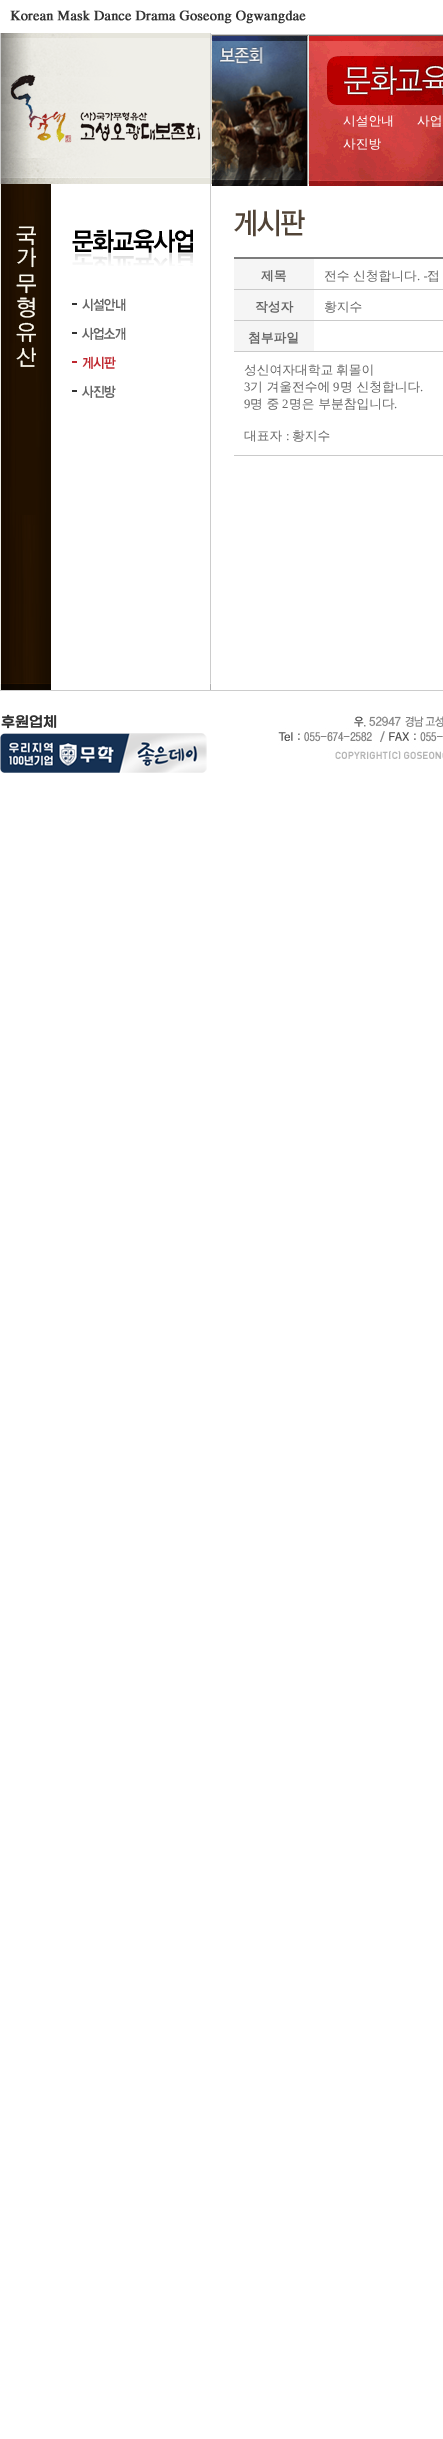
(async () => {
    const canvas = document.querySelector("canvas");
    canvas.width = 443;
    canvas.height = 2439;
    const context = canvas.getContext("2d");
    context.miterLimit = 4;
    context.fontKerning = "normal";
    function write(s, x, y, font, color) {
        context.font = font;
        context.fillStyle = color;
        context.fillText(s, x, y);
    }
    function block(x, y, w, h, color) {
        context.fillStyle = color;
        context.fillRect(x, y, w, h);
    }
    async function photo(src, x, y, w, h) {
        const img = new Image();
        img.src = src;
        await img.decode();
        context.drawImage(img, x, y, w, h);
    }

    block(0, 0, 443, 2439, "rgb(255, 255, 255)");
    block(211, 34, 232, 1, "rgb(204, 204, 204)");
    await photo("media/1.png", 10, 10, 296, 14);
    await photo("media/2.png", 211, 35, 98, 149);
    await photo("media/3.png", 0, 33, 211, 151);
    await photo("media/6.png", 0, 184, 443, 500);
    await photo("media/4.png", 212, 35, 96, 151);
    await photo("media/5.png", 309, 35, 134, 151);
    write("시설안내", 343, 125, "500 12.75px WenQuanYi Zen Hei", "rgb(255, 255, 255)");
    write("사업", 417, 125, "500 12.75px WenQuanYi Zen Hei", "rgb(255, 255, 255)");
    write("사진방", 343, 148, "500 12.75px WenQuanYi Zen Hei", "rgb(255, 255, 255)");
    await photo("media/7.png", 16, 224, 20, 291);
    await photo("media/8.png", 72, 229, 121, 37);
    await photo("media/9.png", 72, 298, 54, 13);
    await photo("media/10.png", 72, 327, 54, 13);
    await photo("media/11.png", 72, 356, 44, 13);
    await photo("media/12.png", 72, 385, 44, 13);
    await photo("media/13.png", 234, 209, 71, 28);
    block(234, 257, 209, 2, "rgb(124, 124, 124)");
    block(234, 259, 80, 30, "rgb(245, 245, 245)");
    write("제목", 261, 280, "bold 12.75px WenQuanYi Zen Hei", "rgb(102, 102, 102)");
    block(234, 289, 209, 1, "rgb(202, 202, 202)");
    write("전수", 324, 280, "500 12.75px WenQuanYi Zen Hei", "rgb(102, 102, 102)");
    write("신청합니다", 353, 280, "500 12.75px WenQuanYi Zen Hei", "rgb(102, 102, 102)");
    write(". -", 417, 280, "12.75px Liberation Serif", "rgb(102, 102, 102)");
    write("접", 427, 280, "500 12.75px WenQuanYi Zen Hei", "rgb(102, 102, 102)");
    block(234, 290, 80, 30, "rgb(245, 245, 245)");
    write("작성자", 255, 311, "bold 12.75px WenQuanYi Zen Hei", "rgb(102, 102, 102)");
    block(234, 320, 209, 1, "rgb(202, 202, 202)");
    write("황지수", 324, 311, "500 12.75px WenQuanYi Zen Hei", "rgb(102, 102, 102)");
    block(234, 321, 80, 30, "rgb(245, 245, 245)");
    write("첨부파일", 248, 342, "bold 12.75px WenQuanYi Zen Hei", "rgb(102, 102, 102)");
    block(234, 351, 209, 1, "rgb(202, 202, 202)");
    block(234, 455, 209, 1, "rgb(202, 202, 202)");
    context.wordSpacing = "-1px";
    write("성신여자대학교 휘몰이", 244, 374, "500 12.75px WenQuanYi Zen Hei", "rgb(102, 102, 102)");
    context.wordSpacing = "0px";
    write("3", 244, 391, "12.75px Liberation Serif", "rgb(102, 102, 102)");
    write("기 겨울전수에", 250, 391, "500 12.75px WenQuanYi Zen Hei", "rgb(102, 102, 102)");
    write("9", 333, 391, "12.75px Liberation Serif", "rgb(102, 102, 102)");
    write("명 신청합니다", 340, 391, "500 12.75px WenQuanYi Zen Hei", "rgb(102, 102, 102)");
    write(".", 420, 391, "12.75px Liberation Serif", "rgb(102, 102, 102)");
    write("9", 244, 408, "12.75px Liberation Serif", "rgb(102, 102, 102)");
    write("명 중", 250, 408, "500 12.75px WenQuanYi Zen Hei", "rgb(102, 102, 102)");
    write("2", 282, 408, "12.75px Liberation Serif", "rgb(102, 102, 102)");
    write("명은 부분참입니다", 289, 408, "500 12.75px WenQuanYi Zen Hei", "rgb(102, 102, 102)");
    write(".", 394, 408, "12.75px Liberation Serif", "rgb(102, 102, 102)");
    write("대표자", 244, 440, "500 12.75px WenQuanYi Zen Hei", "rgb(102, 102, 102)");
    write(":", 286, 440, "12.75px Liberation Serif", "rgb(102, 102, 102)");
    write("황지수", 292, 440, "500 12.75px WenQuanYi Zen Hei", "rgb(102, 102, 102)");
    await photo("media/14.png", 0, 684, 443, 7);
    await photo("media/15.png", 0, 714, 207, 59);
    await photo("media/16.png", 278, 716, 165, 43);
})();
